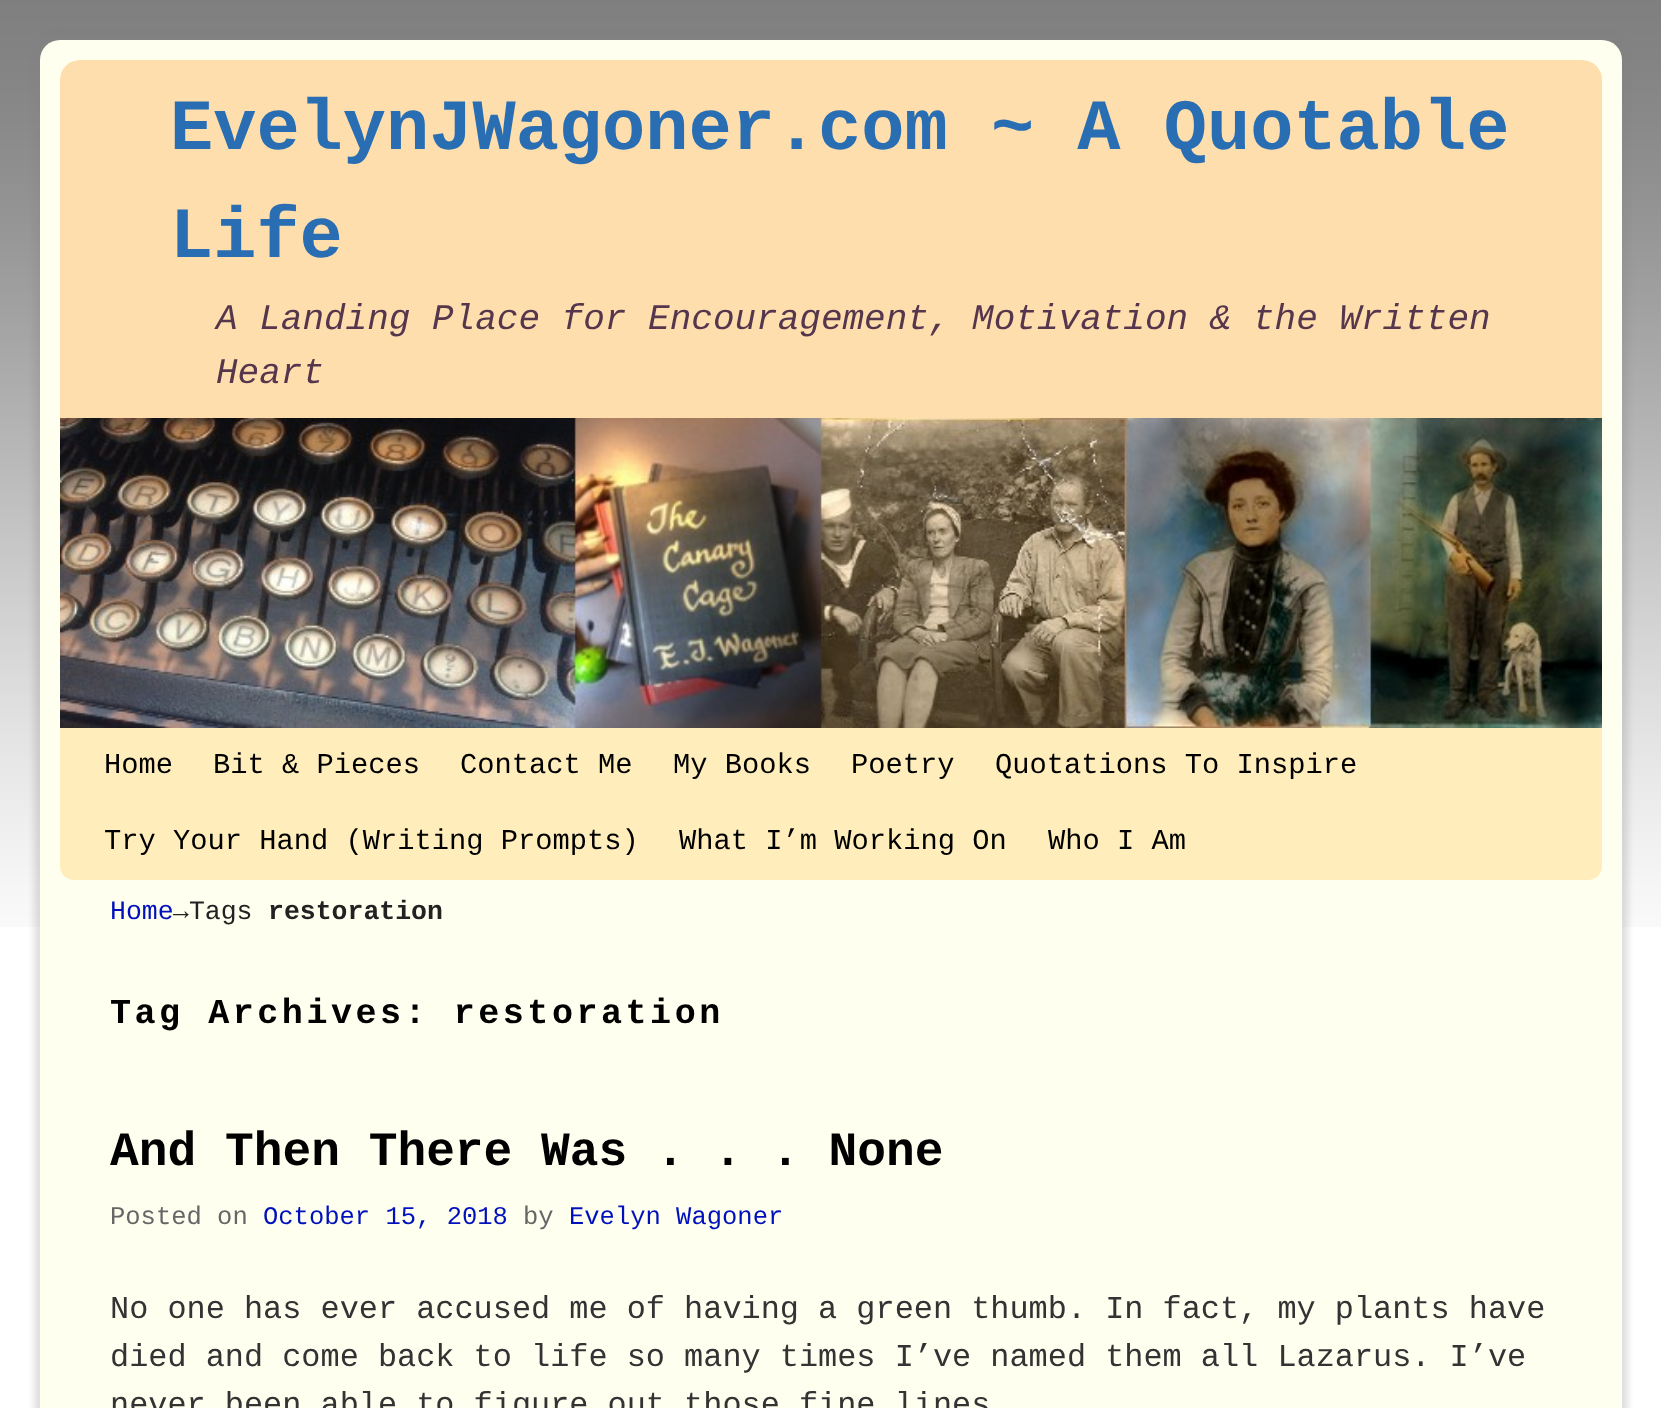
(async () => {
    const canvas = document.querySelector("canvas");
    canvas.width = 1661;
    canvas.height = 1408;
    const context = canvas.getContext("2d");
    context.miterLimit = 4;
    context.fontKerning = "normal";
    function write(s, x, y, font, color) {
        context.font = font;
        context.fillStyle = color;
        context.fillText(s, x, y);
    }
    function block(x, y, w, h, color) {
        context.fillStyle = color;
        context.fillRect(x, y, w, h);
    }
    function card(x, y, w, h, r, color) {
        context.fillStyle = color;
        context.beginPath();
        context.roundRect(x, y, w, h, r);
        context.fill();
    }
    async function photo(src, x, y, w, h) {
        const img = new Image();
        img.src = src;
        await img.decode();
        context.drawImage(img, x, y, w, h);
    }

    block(0, 0, 1661, 1408, "rgb(255, 255, 255)");
    await photo("media/1.png", 0, 0, 1661, 927);
    context.fillStyle = "rgba(127, 127, 127, 0.25)";
    context.filter = "blur(3px)";
    context.beginPath();
    context.roundRect(34, 34, 1594, 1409, 26);
    context.fill();
    context.filter = "none";
    card(40, 40, 1582, 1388, 20, "rgb(255, 255, 240)");
    card(60, 60, 1542, 668, 20, "rgb(255, 222, 173)");
    write("EvelynJWagoner.com ~ A Quotable", 170, 149, "bold 72px Liberation Mono", "rgb(41, 110, 179)");
    write("Life", 170, 257, "bold 72px Liberation Mono", "rgb(41, 110, 179)");
    write("A Landing Place for Encouragement, Motivation & the Written", 216, 329, "italic 36px Liberation Mono", "rgb(85, 54, 77)");
    write("Heart", 216, 383, "italic 36px Liberation Mono", "rgb(85, 54, 77)");
    await photo("media/2.png", 60, 418, 1542, 310);
    context.fillStyle = "rgb(255, 238, 187)";
    context.beginPath();
    context.roundRect(60, 728, 1542, 152, [0, 0, 14, 14]);
    context.fill();
    write("Home", 104, 773, "28.75px Liberation Mono", "rgb(0, 0, 0)");
    write("Bit & Pieces", 213, 773, "28.75px Liberation Mono", "rgb(0, 0, 0)");
    write("Contact Me", 460, 773, "28.75px Liberation Mono", "rgb(0, 0, 0)");
    write("My Books", 673, 773, "28.75px Liberation Mono", "rgb(0, 0, 0)");
    write("Poetry", 851, 773, "28.75px Liberation Mono", "rgb(0, 0, 0)");
    write("Quotations To Inspire", 995, 773, "28.75px Liberation Mono", "rgb(0, 0, 0)");
    write("Try Your Hand (Writing Prompts)", 104, 849, "28.75px Liberation Mono", "rgb(0, 0, 0)");
    write("What I’m Working On", 679, 849, "28.75px Liberation Mono", "rgb(0, 0, 0)");
    write("Who I Am", 1048, 849, "28.75px Liberation Mono", "rgb(0, 0, 0)");
    write("Home", 110, 919, "26.5px Liberation Mono", "rgb(0, 17, 187)");
    write("→Tags", 173, 919, "26.5px Liberation Mono", "rgb(34, 34, 34)");
    write("restoration", 268, 919, "bold 26.5px Liberation Mono", "rgb(34, 34, 34)");
    context.letterSpacing = "3.5px";
    write("Tag Archives: restoration", 110, 1023, "bold 35.1px Liberation Mono", "rgb(0, 0, 0)");
    context.letterSpacing = "0px";
    write("And Then There Was . . . None", 110, 1165, "bold 47.9px Liberation Mono", "rgb(0, 0, 0)");
    write("Posted on", 110, 1224, "25.5px Liberation Mono", "rgb(102, 102, 102)");
    write("October 15, 2018", 263, 1224, "25.5px Liberation Mono", "rgb(0, 17, 187)");
    write("by", 523, 1224, "25.5px Liberation Mono", "rgb(102, 102, 102)");
    write("Evelyn Wagoner", 569, 1224, "25.5px Liberation Mono", "rgb(0, 17, 187)");
    write("No one has ever accused me of having a green thumb. In fact, my plants have", 110, 1318, "31.9px Liberation Mono", "rgb(51, 51, 51)");
    write("died and come back to life so many times I’ve named them all Lazarus. I’ve", 110, 1366, "31.9px Liberation Mono", "rgb(51, 51, 51)");
    write("never been able to figure out those fine lines", 110, 1414, "31.9px Liberation Mono", "rgb(51, 51, 51)");
})();
